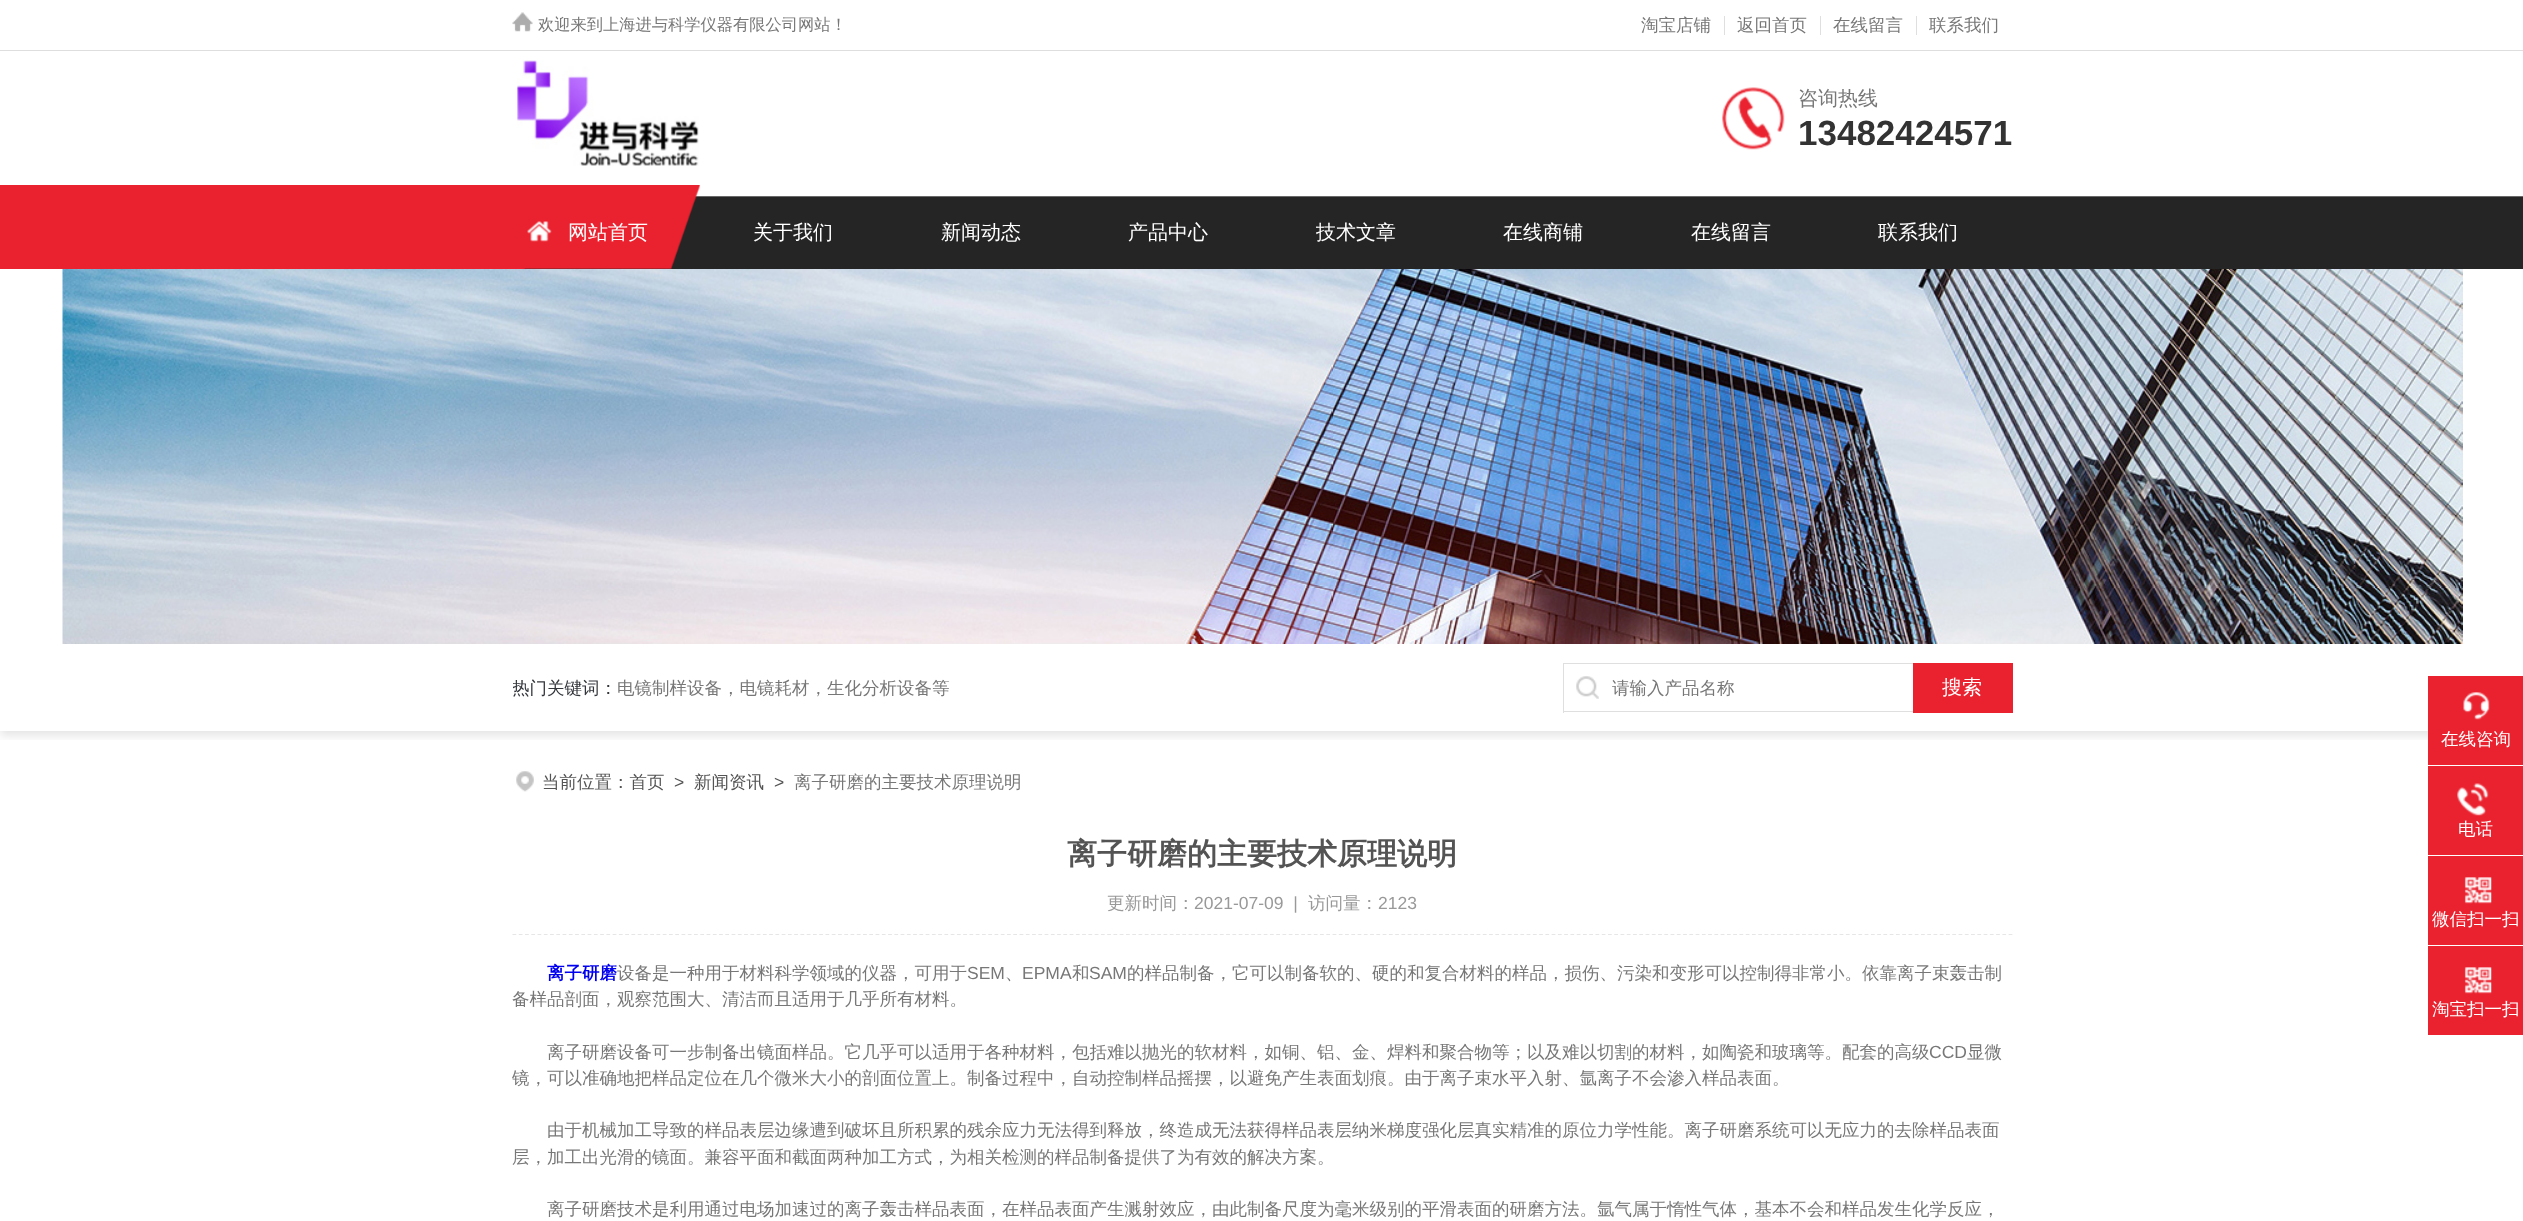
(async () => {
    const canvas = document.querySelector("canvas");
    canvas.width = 2523;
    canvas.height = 1221;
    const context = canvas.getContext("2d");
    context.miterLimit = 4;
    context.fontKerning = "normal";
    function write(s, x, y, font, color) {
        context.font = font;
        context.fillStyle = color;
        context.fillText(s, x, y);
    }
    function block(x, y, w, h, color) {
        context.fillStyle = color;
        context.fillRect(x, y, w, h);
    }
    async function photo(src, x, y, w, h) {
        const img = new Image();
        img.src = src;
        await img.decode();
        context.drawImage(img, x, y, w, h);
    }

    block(0, 0, 2523, 1221, "rgb(255, 255, 255)");
    block(0, 50, 2523, 1, "rgb(222, 222, 222)");
    await photo("media/1.png", 512, 12, 21, 20);
    write("欢迎来到上海进与科学仪器有限公司网站！", 538, 30, "500 16.25px WenQuanYi Zen Hei", "rgb(119, 119, 119)");
    write("淘宝店铺", 1641, 31, "500 17.5px WenQuanYi Zen Hei", "rgb(119, 119, 119)");
    block(1724, 16, 1, 19, "rgb(223, 223, 223)");
    write("返回首页", 1737, 31, "500 17.5px WenQuanYi Zen Hei", "rgb(119, 119, 119)");
    block(1820, 16, 1, 19, "rgb(223, 223, 223)");
    write("在线留言", 1833, 31, "500 17.5px WenQuanYi Zen Hei", "rgb(119, 119, 119)");
    block(1916, 16, 1, 19, "rgb(223, 223, 223)");
    write("联系我们", 1929, 31, "500 17.5px WenQuanYi Zen Hei", "rgb(119, 119, 119)");
    await photo("media/2.png", 517, 60, 182, 106);
    await photo("media/3.png", 1722, 87, 63, 63);
    write("咨询热线", 1798, 105, "500 20px WenQuanYi Zen Hei", "rgb(119, 119, 119)");
    write("13482424571", 1798, 145, "bold 35px Liberation Sans", "rgb(51, 51, 51)");
    await photo("media/4.png", 0, 185, 2523, 84);
    await photo("media/5.png", 523, 185, 177, 84);
    await photo("media/6.png", 527, 221, 25, 21);
    write("网站首页", 568, 239, "500 20px WenQuanYi Zen Hei", "rgb(255, 255, 255)");
    write("关于我们", 753, 239, "500 20px WenQuanYi Zen Hei", "rgb(255, 255, 255)");
    write("新闻动态", 941, 239, "500 20px WenQuanYi Zen Hei", "rgb(255, 255, 255)");
    write("产品中心", 1128, 239, "500 20px WenQuanYi Zen Hei", "rgb(255, 255, 255)");
    write("技术文章", 1316, 239, "500 20px WenQuanYi Zen Hei", "rgb(255, 255, 255)");
    write("在线商铺", 1503, 239, "500 20px WenQuanYi Zen Hei", "rgb(255, 255, 255)");
    write("在线留言", 1691, 239, "500 20px WenQuanYi Zen Hei", "rgb(255, 255, 255)");
    write("联系我们", 1878, 239, "500 20px WenQuanYi Zen Hei", "rgb(255, 255, 255)");
    await photo("media/7.png", 62, 269, 2401, 375);
    context.save();
    context.beginPath();
    context.rect(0, 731, 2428, 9);
    context.clip();
    context.fillStyle = "rgba(0, 0, 0, 0.1)";
    context.filter = "blur(5px)";
    context.beginPath();
    context.rect(0, 649, 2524, 87);
    context.fill();
    context.filter = "none";
    context.restore();
    context.save();
    context.beginPath();
    context.rect(513, 663, 990, 50);
    context.clip();
    write("热门关键词：", 512, 694, "500 17.5px WenQuanYi Zen Hei", "rgb(50, 53, 58)");
    context.restore();
    write("电镜制样设备，电镜耗材，生化分析设备等", 617, 694, "500 17.5px WenQuanYi Zen Hei", "rgb(119, 119, 119)");
    await photo("media/8.png", 1576, 676, 23, 23);
    block(1563, 663, 350, 1, "rgb(223, 223, 223)");
    block(1563, 711, 350, 1, "rgb(223, 223, 223)");
    block(1563, 663, 1, 50, "rgb(223, 223, 223)");
    write("请输入产品名称", 1612, 694, "500 17.5px WenQuanYi Zen Hei", "rgb(119, 119, 119)");
    block(1913, 663, 100, 50, "rgb(234, 34, 47)");
    write("搜索", 1942, 694, "500 20px WenQuanYi Zen Hei", "rgb(255, 255, 255)");
    await photo("media/9.png", 516, 771, 18, 21);
    write("当前位置：首页", 542, 788, "500 17.5px WenQuanYi Zen Hei", "rgb(84, 84, 84)");
    write(">", 674, 788, "17.5px Liberation Sans", "rgb(84, 84, 84)");
    write("新闻资讯", 694, 788, "500 17.5px WenQuanYi Zen Hei", "rgb(84, 84, 84)");
    write(">", 774, 788, "17.5px Liberation Sans", "rgb(84, 84, 84)");
    write("离子研磨的主要技术原理说明", 794, 788, "500 17.5px WenQuanYi Zen Hei", "rgb(119, 119, 119)");
    block(2428, 676, 95, 89, "rgb(234, 34, 47)");
    await photo("media/10.png", 2463, 692, 27, 28);
    write("在线咨询", 2441, 745, "500 17.5px WenQuanYi Zen Hei", "rgb(255, 255, 255)");
    block(2428, 766, 95, 89, "rgb(234, 34, 47)");
    await photo("media/11.png", 2457, 783, 32, 33);
    write("电话", 2458, 835, "500 17.5px WenQuanYi Zen Hei", "rgb(255, 255, 255)");
    block(2428, 856, 95, 89, "rgb(234, 34, 47)");
    await photo("media/12.png", 2464, 877, 28, 27);
    write("微信扫一扫", 2432, 925, "500 17.5px WenQuanYi Zen Hei", "rgb(255, 255, 255)");
    block(2428, 946, 95, 89, "rgb(234, 34, 47)");
    await photo("media/12.png", 2464, 967, 28, 27);
    write("淘宝扫一扫", 2432, 1015, "500 17.5px WenQuanYi Zen Hei", "rgb(255, 255, 255)");
    write("离子研磨的主要技术原理说明", 1067, 864, "bold 30px WenQuanYi Zen Hei", "rgb(84, 84, 84)");
    context.beginPath();
    context.moveTo(512.5, 934.5);
    context.lineTo(2012.5, 934.5);
    context.strokeStyle = "rgb(230, 230, 230)";
    context.lineWidth = 1.2;
    context.setLineDash([3.75, 2.51]);
    context.stroke();
    write("更新时间：", 1107, 909, "500 17.5px WenQuanYi Zen Hei", "rgb(153, 153, 153)");
    write("2021-07-09  |", 1194, 909, "17.5px Liberation Sans", "rgb(153, 153, 153)");
    write("访问量：", 1308, 909, "500 17.5px WenQuanYi Zen Hei", "rgb(153, 153, 153)");
    write("2123", 1378, 909, "17.5px Liberation Sans", "rgb(153, 153, 153)");
    write("离子研磨", 547, 979, "bold 17.5px WenQuanYi Zen Hei", "rgb(0, 0, 238)");
    write("设备是一种用于材料科学领域的仪器，可用于", 617, 979, "500 17.5px WenQuanYi Zen Hei", "rgb(119, 119, 119)");
    write("SEM", 967, 979, "17.5px Liberation Sans", "rgb(119, 119, 119)");
    write("、", 1005, 979, "500 17.5px WenQuanYi Zen Hei", "rgb(119, 119, 119)");
    write("EPMA", 1022, 979, "17.5px Liberation Sans", "rgb(119, 119, 119)");
    write("和", 1072, 979, "500 17.5px WenQuanYi Zen Hei", "rgb(119, 119, 119)");
    write("SAM", 1089, 979, "17.5px Liberation Sans", "rgb(119, 119, 119)");
    write("的样品制备，它可以制备软的、硬的和复合材料的样品，损伤、污染和变形可以控制得非常小。依靠离子束轰击制", 1127, 979, "500 17.5px WenQuanYi Zen Hei", "rgb(119, 119, 119)");
    write("备样品剖面，观察范围大、清洁而且适用于几乎所有材料。", 512, 1005, "500 17.5px WenQuanYi Zen Hei", "rgb(119, 119, 119)");
    write("离子研磨设备可一步制备出镜面样品。它几乎可以适用于各种材料，包括难以抛光的软材料，如铜、铝、金、焊料和聚合物等；以及难以切割的材料，如陶瓷和玻璃等。配套的高级", 547, 1058, "500 17.5px WenQuanYi Zen Hei", "rgb(119, 119, 119)");
    write("CCD", 1929, 1058, "17.5px Liberation Sans", "rgb(119, 119, 119)");
    write("显微", 1967, 1058, "500 17.5px WenQuanYi Zen Hei", "rgb(119, 119, 119)");
    write("镜，可以准确地把样品定位在几个微米大小的剖面位置上。制备过程中，自动控制样品摇摆，以避免产生表面划痕。由于离子束水平入射、氩离子不会渗入样品表面。", 512, 1084, "500 17.5px WenQuanYi Zen Hei", "rgb(119, 119, 119)");
    write("由于机械加工导致的样品表层边缘遭到破坏且所积累的残余应力无法得到释放，终造成无法获得样品表层纳米梯度强化层真实精准的原位力学性能。离子研磨系统可以无应力的去除样品表面", 547, 1136, "500 17.5px WenQuanYi Zen Hei", "rgb(119, 119, 119)");
    write("层，加工出光滑的镜面。兼容平面和截面两种加工方式，为相关检测的样品制备提供了为有效的解决方案。", 512, 1163, "500 17.5px WenQuanYi Zen Hei", "rgb(119, 119, 119)");
    write("离子研磨技术是利用通过电场加速过的离子轰击样品表面，在样品表面产生溅射效应，由此制备尺度为毫米级别的平滑表面的研磨方法。氩气属于惰性气体，基本不会和样品发生化学反应，", 547, 1215, "500 17.5px WenQuanYi Zen Hei", "rgb(119, 119, 119)");
})();
